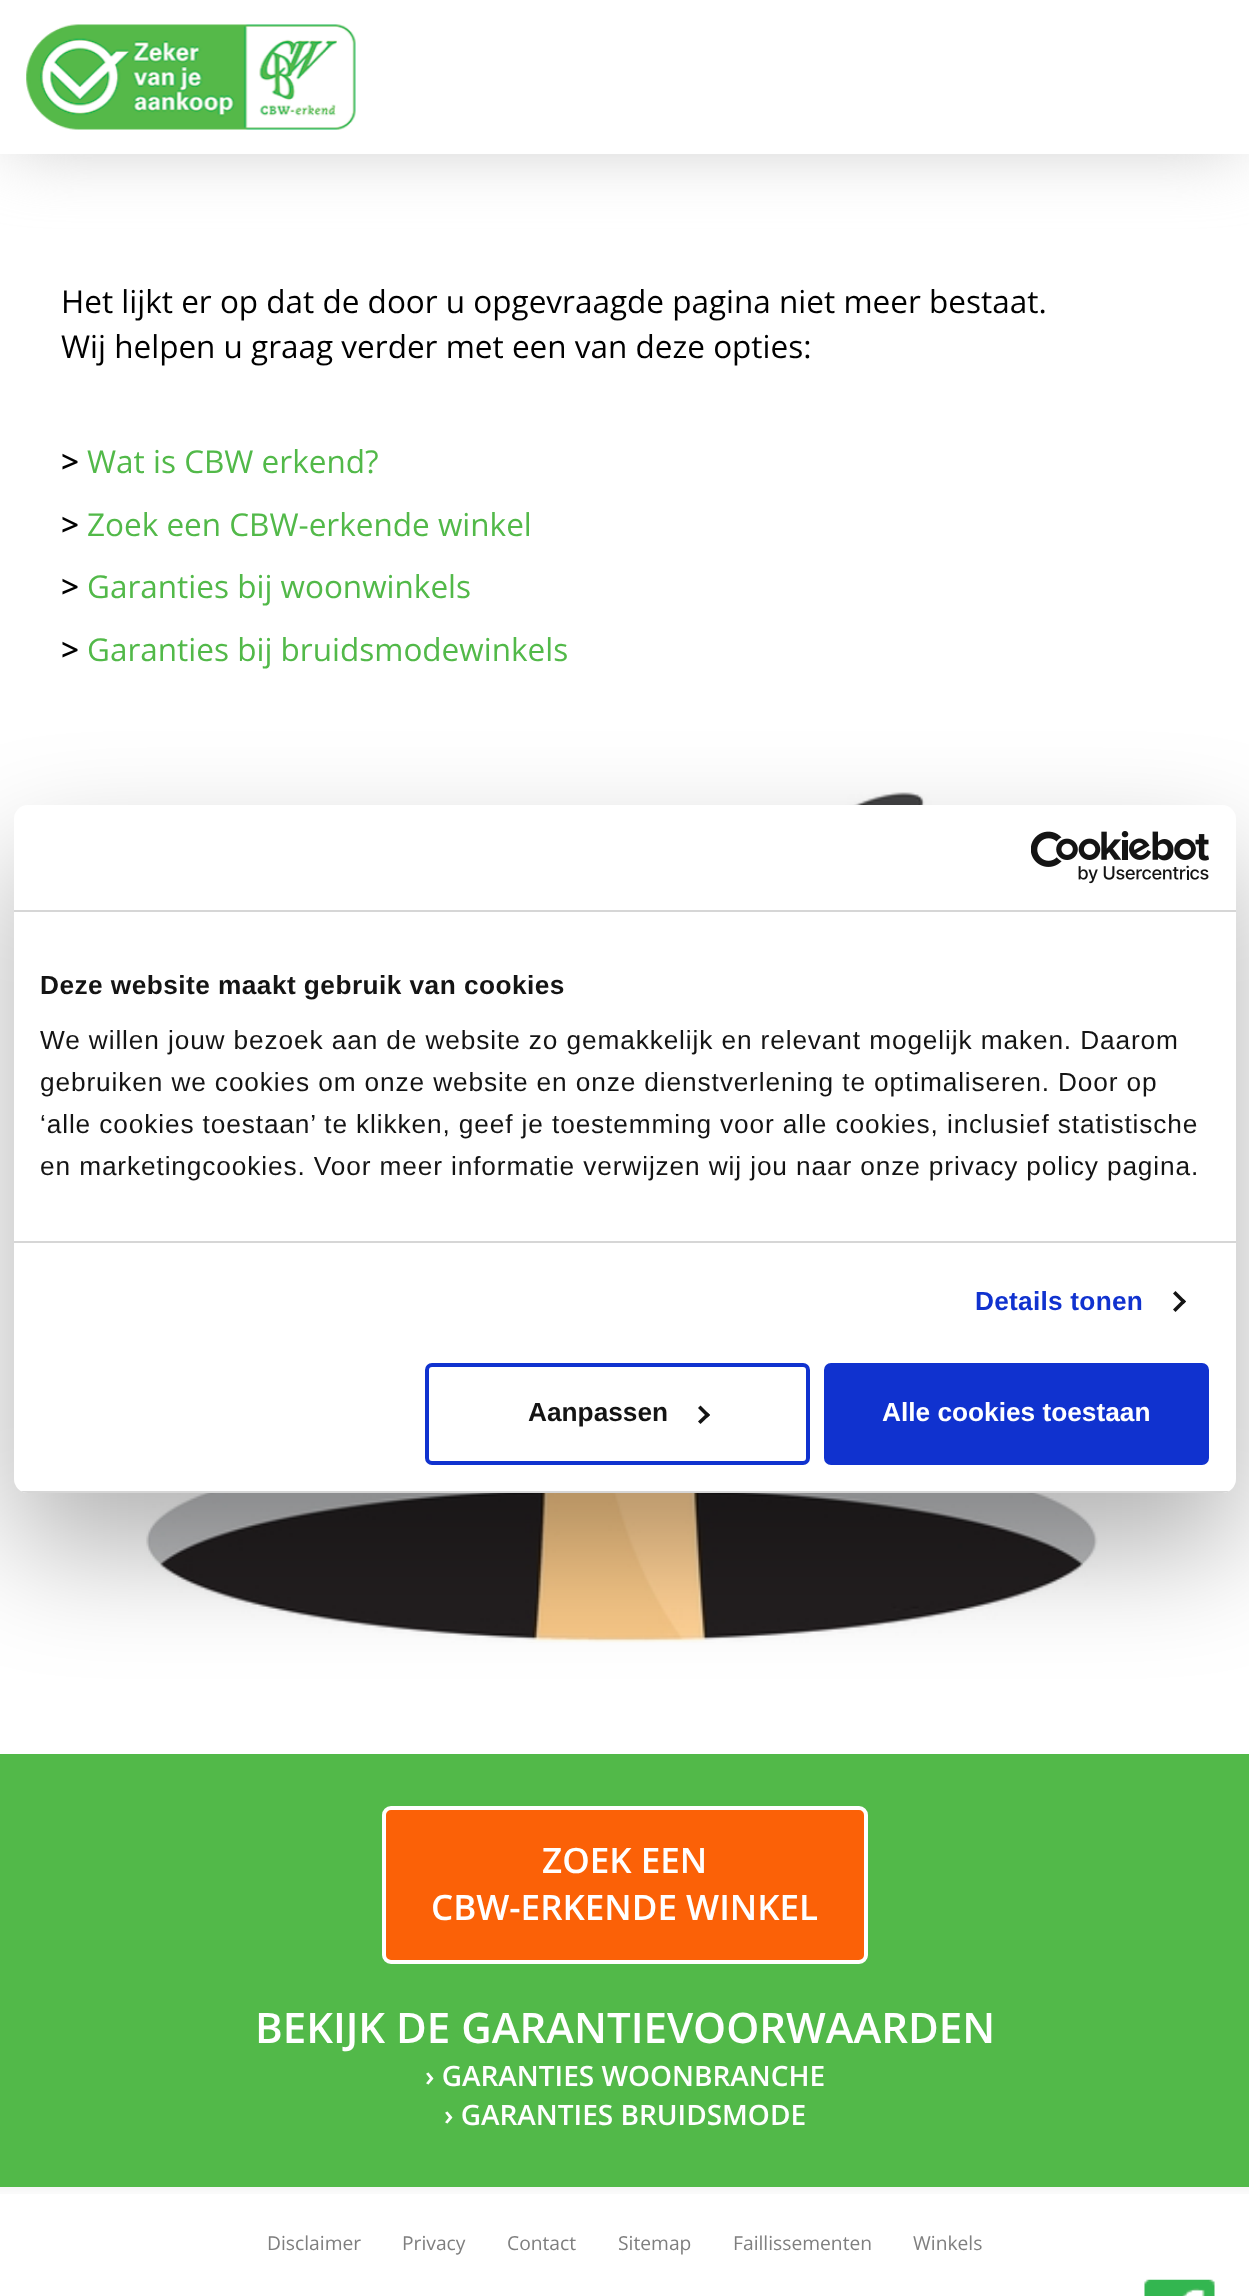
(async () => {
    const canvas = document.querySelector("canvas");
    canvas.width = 1249;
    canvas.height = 2296;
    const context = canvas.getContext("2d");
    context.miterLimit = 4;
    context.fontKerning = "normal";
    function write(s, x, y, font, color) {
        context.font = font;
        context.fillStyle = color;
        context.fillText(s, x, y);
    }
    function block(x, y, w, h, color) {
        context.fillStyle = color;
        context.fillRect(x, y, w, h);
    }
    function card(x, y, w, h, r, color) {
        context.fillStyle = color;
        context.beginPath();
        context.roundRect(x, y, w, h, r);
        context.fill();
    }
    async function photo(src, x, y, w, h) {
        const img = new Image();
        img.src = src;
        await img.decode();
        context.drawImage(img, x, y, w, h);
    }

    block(0, 0, 1249, 2296, "rgb(255, 255, 255)");
    context.fillStyle = "rgb(199, 199, 199)";
    context.filter = "blur(35px)";
    context.beginPath();
    context.rect(9, 9, 1232, 136);
    context.fill();
    context.filter = "none";
    block(0, 0, 1249, 154, "rgb(255, 255, 255)");
    await photo("media/1.png", 26, 24, 330, 106);
    write("Het lijkt er op dat de door u opgevraagde pagina niet meer bestaat.", 61, 313, "31.5px Open Sans", "rgb(0, 0, 0)");
    write("Wij helpen u graag verder met een van deze opties:", 61, 358, "31.5px Open Sans", "rgb(0, 0, 0)");
    write(">", 61, 473, "600 31.5px Open Sans", "rgb(0, 0, 0)");
    write("Wat is CBW erkend?", 87, 473, "31.5px Open Sans", "rgb(82, 185, 73)");
    write(">", 61, 536, "600 31.5px Open Sans", "rgb(0, 0, 0)");
    write("Zoek een CBW-erkende winkel", 87, 536, "31.5px Open Sans", "rgb(82, 185, 73)");
    write(">", 61, 598, "600 31.5px Open Sans", "rgb(0, 0, 0)");
    write("Garanties bij woonwinkels", 87, 598, "31.5px Open Sans", "rgb(82, 185, 73)");
    write(">", 61, 661, "600 31.5px Open Sans", "rgb(0, 0, 0)");
    write("Garanties bij bruidsmodewinkels", 87, 661, "31.5px Open Sans", "rgb(82, 185, 73)");
    await photo("media/2.png", 146, 792, 952, 851);
    block(0, 1754, 1249, 433, "rgb(82, 185, 73)");
    context.fillStyle = "rgb(251, 97, 7)";
    context.beginPath();
    context.roundRect(384, 1808, 482, 154, 7);
    context.fill();
    context.strokeStyle = "rgb(255, 255, 255)";
    context.lineWidth = 4;
    context.stroke();
    write("ZOEK EEN", 542, 1873, "600 35px Open Sans", "rgb(255, 255, 255)");
    write("CBW-ERKENDE WINKEL", 431, 1920, "600 35px Open Sans", "rgb(255, 255, 255)");
    write("BEKIJK DE GARANTIEVOORWAARDEN", 255, 2043, "600 42px Open Sans", "rgb(255, 255, 255)");
    write("› GARANTIES WOONBRANCHE", 425, 2086, "600 28px Open Sans", "rgb(255, 255, 255)");
    write("› GARANTIES BRUIDSMODE", 444, 2125, "600 28px Open Sans", "rgb(255, 255, 255)");
    await photo("media/3.png", 0, 2187, 1249, 7);
    write("Disclaimer", 267, 2250, "19.25px Open Sans", "rgb(127, 127, 127)");
    write("Privacy", 402, 2250, "19.25px Open Sans", "rgb(127, 127, 127)");
    write("Contact", 507, 2250, "19.25px Open Sans", "rgb(127, 127, 127)");
    write("Sitemap", 618, 2250, "19.25px Open Sans", "rgb(127, 127, 127)");
    write("Faillissementen", 733, 2250, "19.25px Open Sans", "rgb(127, 127, 127)");
    write("Winkels", 913, 2250, "19.25px Open Sans", "rgb(127, 127, 127)");
    await photo("media/4.png", 1144, 2279, 71, 17);
    context.fillStyle = "rgba(0, 0, 0, 0.3)";
    context.filter = "blur(59.5px)";
    context.beginPath();
    context.roundRect(14, 861, 1222, 688, 14);
    context.fill();
    context.filter = "none";
    card(14, 805, 1222, 688, 14, "rgb(255, 255, 255)");
    block(14, 910, 1222, 2, "rgb(214, 214, 214)");
    await photo("media/5.png", 1031, 831, 178, 53);
    block(14, 1241, 1222, 2, "rgb(214, 214, 214)");
    context.letterSpacing = "0.45px";
    write("Deze website maakt gebruik van cookies", 40, 994, "bold 26.25px Liberation Sans", "rgb(20, 20, 20)");
    context.letterSpacing = "0.88px";
    write("We willen jouw bezoek aan de website zo gemakkelijk en relevant mogelijk maken. Daarom", 40, 1049, "26.25px Liberation Sans", "rgb(20, 20, 20)");
    write("gebruiken we cookies om onze website en onze dienstverlening te optimaliseren. Door op", 40, 1091, "26.25px Liberation Sans", "rgb(20, 20, 20)");
    write("‘alle cookies toestaan’ te klikken, geef je toestemming voor alle cookies, inclusief statistische", 40, 1133, "26.25px Liberation Sans", "rgb(20, 20, 20)");
    write("en marketingcookies. Voor meer informatie verwijzen wij jou naar onze privacy policy pagina.", 40, 1175, "26.25px Liberation Sans", "rgb(20, 20, 20)");
    context.letterSpacing = "0.25px";
    write("Details tonen", 975, 1310, "bold 26.25px Liberation Sans", "rgb(16, 50, 207)");
    context.fillStyle = "rgb(20, 20, 20)";
    context.beginPath();
    context.moveTo(1175.5, 1291);
    context.lineTo(1186, 1301.5);
    context.lineTo(1183.5, 1304);
    context.lineTo(1173, 1293.5);
    context.closePath();
    context.fill();
    context.beginPath();
    context.moveTo(1183.5, 1299);
    context.lineTo(1186, 1301.5);
    context.lineTo(1175.5, 1312);
    context.lineTo(1173, 1309.5);
    context.closePath();
    context.fill();
    context.save();
    context.beginPath();
    context.roundRect(14, 805, 1222, 688, 14);
    context.clip();
    block(14, 1491, 1222, 2, "rgb(214, 214, 214)");
    context.restore();
    context.beginPath();
    context.roundRect(427, 1365, 381, 98, 5);
    context.strokeStyle = "rgb(16, 50, 207)";
    context.stroke();
    context.letterSpacing = "0px";
    write("Aanpassen", 528, 1421, "bold 26.25px Liberation Sans", "rgb(20, 20, 20)");
    context.beginPath();
    context.moveTo(700.5, 1405.5);
    context.lineTo(710, 1415);
    context.lineTo(707.5, 1417.5);
    context.lineTo(698, 1408);
    context.closePath();
    context.fill();
    context.beginPath();
    context.moveTo(707.5, 1412.5);
    context.lineTo(710, 1415);
    context.lineTo(700.5, 1424);
    context.lineTo(698, 1421.5);
    context.closePath();
    context.fill();
    context.fillStyle = "rgb(16, 50, 207)";
    context.beginPath();
    context.roundRect(826, 1365, 381, 98, 5);
    context.fill();
    context.stroke();
    write("Alle cookies toestaan", 882, 1421, "bold 26.25px Liberation Sans", "rgb(255, 255, 255)");
})();
